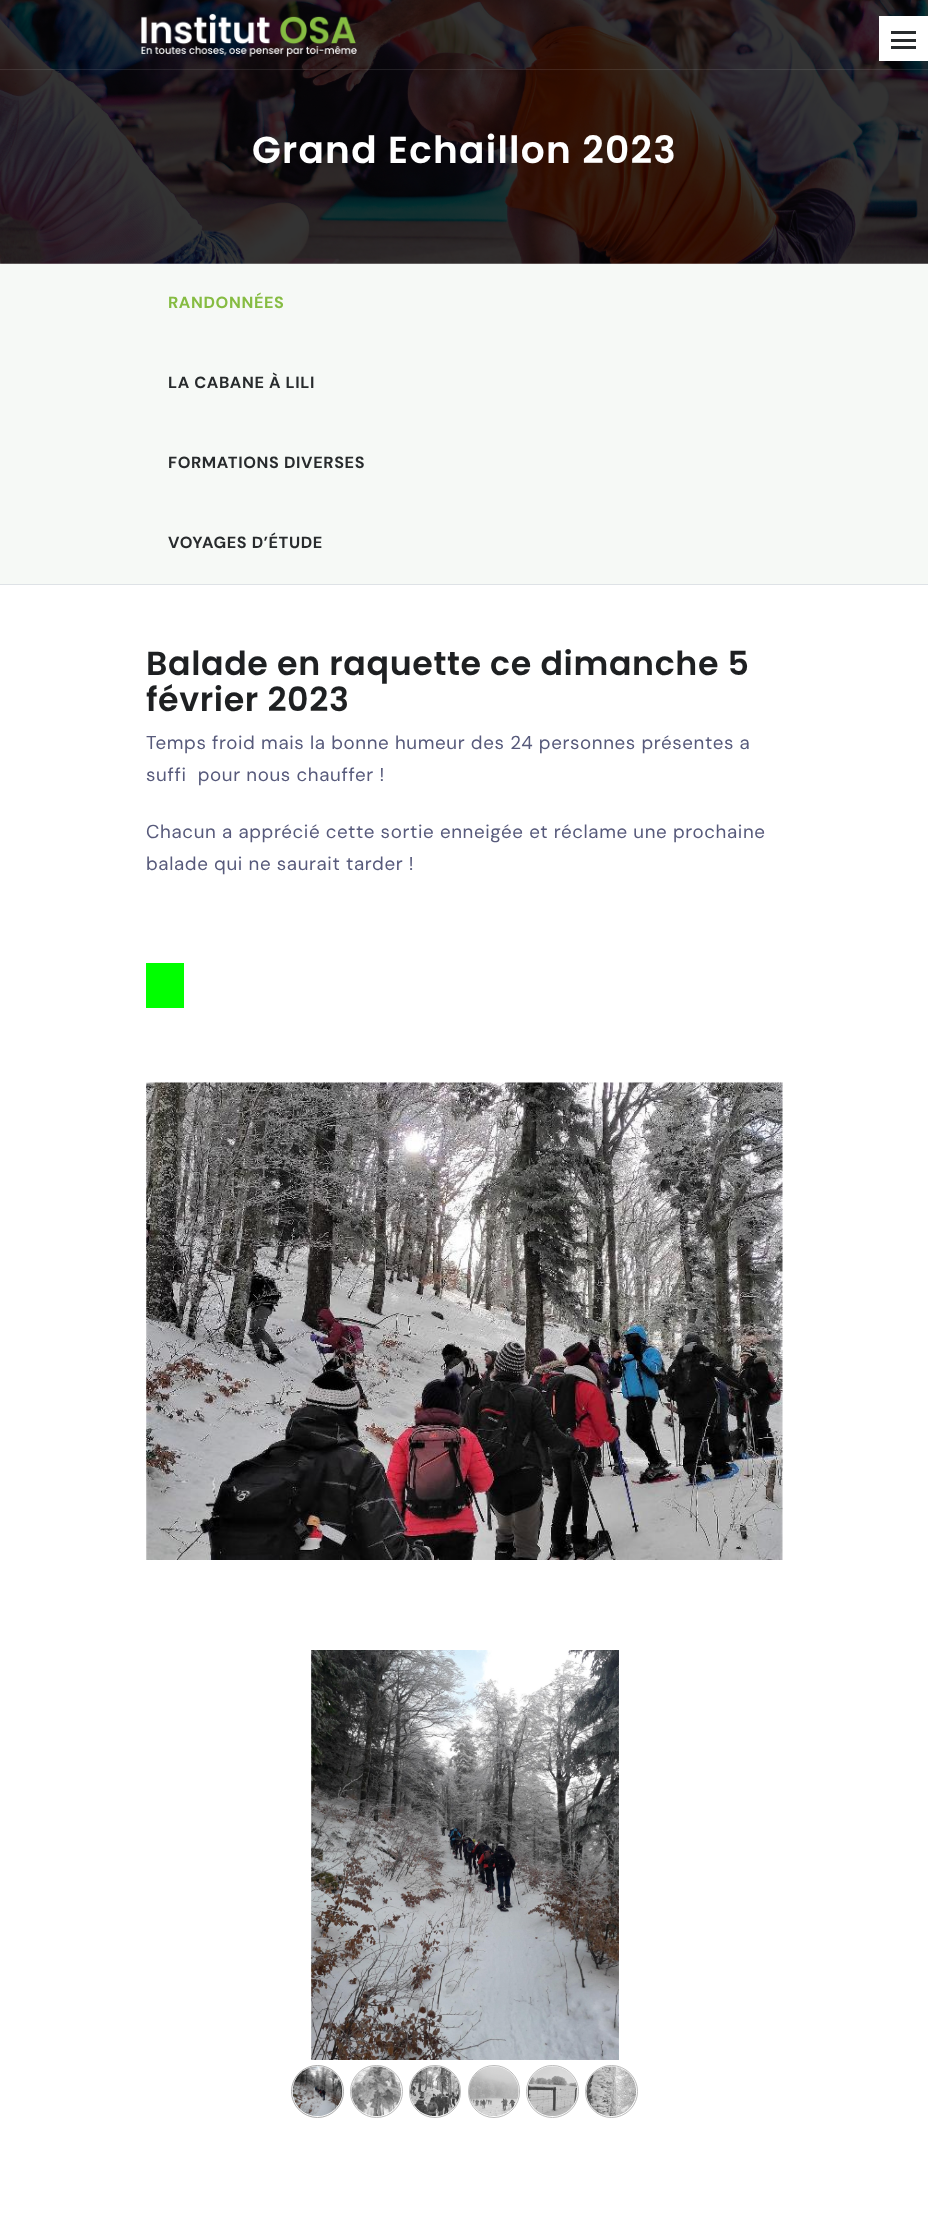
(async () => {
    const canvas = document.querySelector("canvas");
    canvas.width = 928;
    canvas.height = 2232;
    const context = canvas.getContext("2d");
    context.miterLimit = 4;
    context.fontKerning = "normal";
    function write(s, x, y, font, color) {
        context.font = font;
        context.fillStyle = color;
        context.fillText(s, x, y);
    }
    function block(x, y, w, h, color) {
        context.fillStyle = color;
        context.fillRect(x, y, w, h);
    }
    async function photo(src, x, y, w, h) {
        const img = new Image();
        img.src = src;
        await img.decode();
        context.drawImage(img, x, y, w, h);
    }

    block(0, 0, 928, 2232, "rgb(255, 255, 255)");
    await photo("media/2.png", 0, 0, 928, 264);
    block(0, 69, 928, 1, "rgba(255, 255, 255, 0.1)");
    await photo("media/1.png", 141, 13, 216, 44);
    block(879, 16, 49, 45, "rgb(255, 255, 255)");
    block(891, 31, 25, 3, "rgb(40, 43, 45)");
    block(891, 39, 25, 3, "rgb(40, 43, 45)");
    block(891, 46, 25, 3, "rgb(40, 43, 45)");
    context.letterSpacing = "1.25px";
    write("Grand Echaillon 2023", 252, 163, "600 37.5px Poppins", "rgb(255, 255, 255)");
    block(0, 264, 928, 320, "rgb(246, 249, 246)");
    block(0, 584, 928, 1, "rgb(222, 226, 230)");
    context.letterSpacing = "0.62px";
    write("RANDONNÉES", 168, 308, "bold 16.25px DM Sans", "rgb(134, 188, 66)");
    write("LA CABANE À LILI", 168, 388, "bold 16.25px DM Sans", "rgb(40, 43, 45)");
    write("FORMATIONS DIVERSES", 168, 468, "bold 16.25px DM Sans", "rgb(40, 43, 45)");
    write("VOYAGES D’ÉTUDE", 168, 548, "bold 16.25px DM Sans", "rgb(40, 43, 45)");
    write("Balade en raquette ce dimanche 5", 146, 675, "600 33.25px Poppins", "rgb(30, 32, 34)");
    write("février 2023", 146, 711, "600 33.25px Poppins", "rgb(30, 32, 34)");
    write("Temps froid mais la bonne humeur des 24 personnes présentes a", 146, 749, "18.75px DM Sans", "rgb(87, 90, 123)");
    write("suffi  pour nous chauffer !", 146, 781, "18.75px DM Sans", "rgb(87, 90, 123)");
    write("Chacun a apprécié cette sortie enneigée et réclame une prochaine", 146, 838, "18.75px DM Sans", "rgb(87, 90, 123)");
    write("balade qui ne saurait tarder !", 146, 870, "18.75px DM Sans", "rgb(87, 90, 123)");
    block(146, 963, 38, 45, "rgb(0, 255, 0)");
    await photo("media/3.png", 146, 1082, 637, 478);
    await photo("media/4.png", 311, 1650, 308, 410);
    await photo("media/5.png", 292, 2066, 51, 50);
    context.beginPath();
    context.arc(317.5, 2091.5, 26, 0, Math.PI * 2);
    context.strokeStyle = "rgb(170, 170, 170)";
    context.stroke();
    await photo("media/6.png", 351, 2066, 51, 51);
    context.beginPath();
    context.arc(376.5, 2091.5, 26, 0, Math.PI * 2);
    context.strokeStyle = "rgb(187, 187, 187)";
    context.stroke();
    await photo("media/7.png", 410, 2066, 50, 51);
    context.beginPath();
    context.roundRect(409.5, 2065.5, 51, 52, 25.5);
    context.stroke();
    await photo("media/8.png", 468, 2066, 51, 50);
    context.beginPath();
    context.roundRect(468.5, 2065.5, 51, 52, 25.5);
    context.stroke();
    await photo("media/9.png", 527, 2066, 51, 50);
    context.beginPath();
    context.arc(552.5, 2091.5, 26, 0, Math.PI * 2);
    context.stroke();
    await photo("media/10.png", 586, 2066, 51, 51);
    context.beginPath();
    context.arc(611.5, 2091.5, 26, 0, Math.PI * 2);
    context.stroke();
})();
